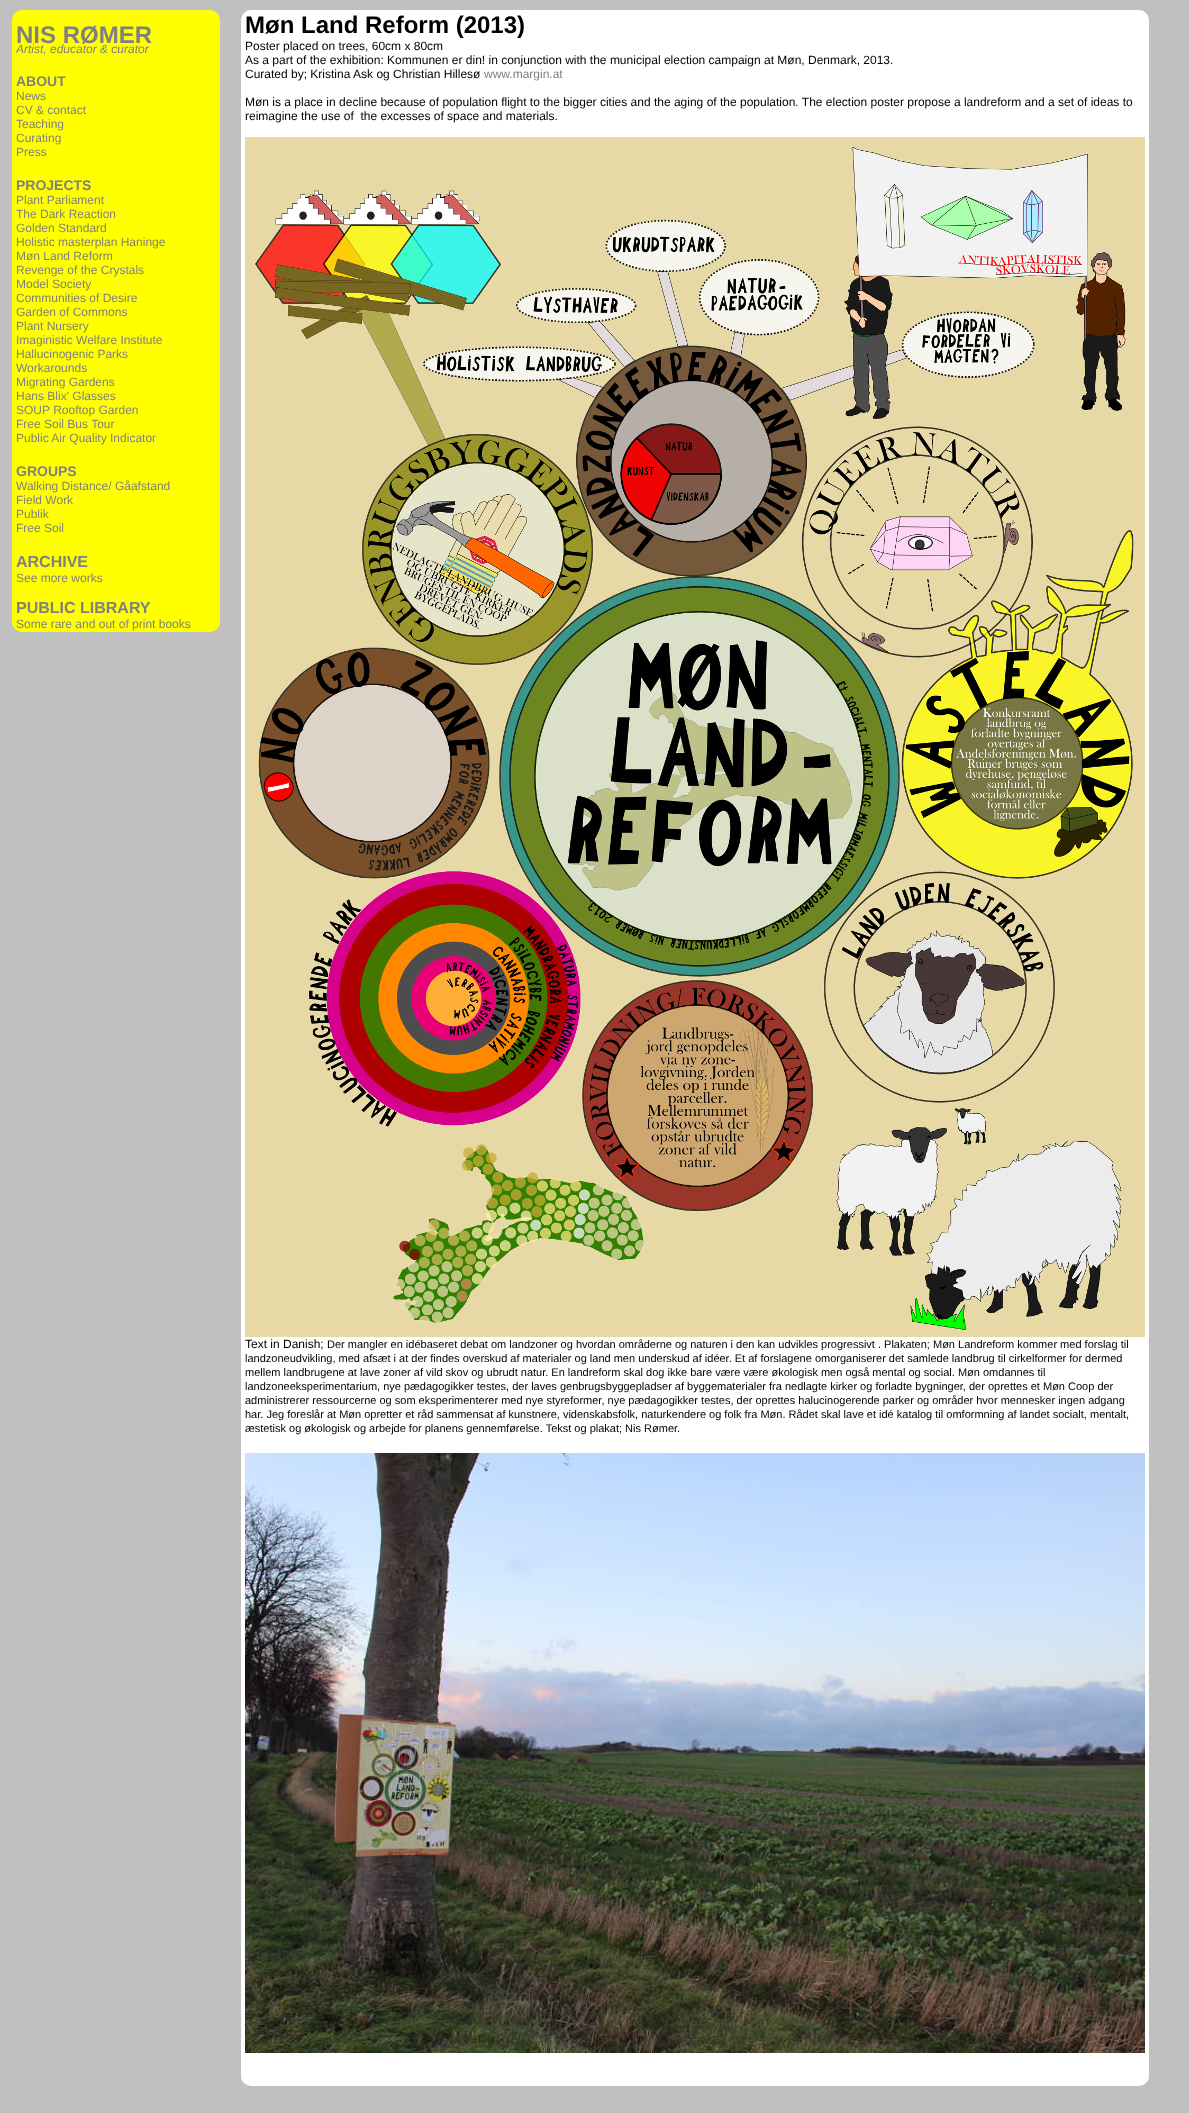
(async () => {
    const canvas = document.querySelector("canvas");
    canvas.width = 1189;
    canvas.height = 2113;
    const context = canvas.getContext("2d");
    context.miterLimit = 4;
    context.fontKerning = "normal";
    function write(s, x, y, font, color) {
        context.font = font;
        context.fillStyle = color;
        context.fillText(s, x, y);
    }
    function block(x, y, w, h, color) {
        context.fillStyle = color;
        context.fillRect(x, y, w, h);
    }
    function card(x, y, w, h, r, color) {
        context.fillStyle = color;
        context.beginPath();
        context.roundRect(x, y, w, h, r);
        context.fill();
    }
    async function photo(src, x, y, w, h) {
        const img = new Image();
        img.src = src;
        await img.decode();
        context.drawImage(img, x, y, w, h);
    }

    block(0, 0, 1189, 2113, "rgb(192, 192, 192)");
    card(12, 10, 208, 622, 10, "rgb(255, 255, 0)");
    write("NIS RØMER", 16, 43, "bold 24px Liberation Sans", "rgb(128, 128, 128)");
    write("Artist, educator & curator", 16, 53, "italic 12px Liberation Sans", "rgb(128, 128, 128)");
    write("ABOUT", 16, 86, "bold 14px Liberation Sans", "rgb(128, 128, 128)");
    write("News", 16, 100, "12px Liberation Sans", "rgb(128, 128, 128)");
    write("CV & contact", 16, 114, "12px Liberation Sans", "rgb(128, 128, 128)");
    write("Teaching", 16, 128, "12px Liberation Sans", "rgb(128, 128, 128)");
    write("Curating", 16, 142, "12px Liberation Sans", "rgb(128, 128, 128)");
    write("Press", 16, 156, "12px Liberation Sans", "rgb(128, 128, 128)");
    write("PROJECTS", 16, 190, "bold 14px Liberation Sans", "rgb(128, 128, 128)");
    write("Plant Parliament", 16, 204, "12px Liberation Sans", "rgb(128, 128, 128)");
    write("The Dark Reaction", 16, 218, "12px Liberation Sans", "rgb(128, 128, 128)");
    write("Golden Standard", 16, 232, "12px Liberation Sans", "rgb(128, 128, 128)");
    write("Holistic masterplan Haninge", 16, 246, "12px Liberation Sans", "rgb(128, 128, 128)");
    write("Møn Land Reform", 16, 260, "12px Liberation Sans", "rgb(128, 128, 128)");
    write("Revenge of the Crystals", 16, 274, "12px Liberation Sans", "rgb(128, 128, 128)");
    write("Model Society", 16, 288, "12px Liberation Sans", "rgb(128, 128, 128)");
    write("Communities of Desire", 16, 302, "12px Liberation Sans", "rgb(128, 128, 128)");
    write("Garden of Commons", 16, 316, "12px Liberation Sans", "rgb(128, 128, 128)");
    write("Plant Nursery", 16, 330, "12px Liberation Sans", "rgb(128, 128, 128)");
    write("Imaginistic Welfare Institute", 16, 344, "12px Liberation Sans", "rgb(128, 128, 128)");
    write("Hallucinogenic Parks", 16, 358, "12px Liberation Sans", "rgb(128, 128, 128)");
    write("Workarounds", 16, 372, "12px Liberation Sans", "rgb(128, 128, 128)");
    write("Migrating Gardens", 16, 386, "12px Liberation Sans", "rgb(128, 128, 128)");
    write("Hans Blix' Glasses", 16, 400, "12px Liberation Sans", "rgb(128, 128, 128)");
    write("SOUP Rooftop Garden", 16, 414, "12px Liberation Sans", "rgb(128, 128, 128)");
    write("Free Soil Bus Tour", 16, 428, "12px Liberation Sans", "rgb(128, 128, 128)");
    write("Public Air Quality Indicator", 16, 442, "12px Liberation Sans", "rgb(128, 128, 128)");
    write("GROUPS", 16, 476, "bold 14px Liberation Sans", "rgb(128, 128, 128)");
    write("Walking Distance/ Gåafstand", 16, 490, "12px Liberation Sans", "rgb(128, 128, 128)");
    write("Field Work", 16, 504, "12px Liberation Sans", "rgb(128, 128, 128)");
    write("Publik", 16, 518, "12px Liberation Sans", "rgb(128, 128, 128)");
    write("Free Soil", 16, 532, "12px Liberation Sans", "rgb(128, 128, 128)");
    write("ARCHIVE", 16, 567, "bold 16px Liberation Sans", "rgb(128, 128, 128)");
    write("See more works", 16, 582, "12px Liberation Sans", "rgb(128, 128, 128)");
    write("PUBLIC LIBRARY", 16, 613, "bold 16px Liberation Sans", "rgb(128, 128, 128)");
    write("Some rare and out of print books", 16, 628, "12px Liberation Sans", "rgb(128, 128, 128)");
    card(241, 10, 908, 2076, 10, "rgb(255, 255, 255)");
    write("Møn Land Reform (2013)", 245, 33, "bold 24px Liberation Sans", "rgb(0, 0, 0)");
    write("Poster placed on trees, 60cm x 80cm", 245, 50, "12px Liberation Sans", "rgb(0, 0, 0)");
    write("As a part of the exhibition: Kommunen er din! in conjunction with the municipal election campaign at Møn, Denmark, 2013.", 245, 64, "12px Liberation Sans", "rgb(0, 0, 0)");
    write("Curated by; Kristina Ask og Christian Hillesø", 245, 78, "12px Liberation Sans", "rgb(0, 0, 0)");
    write("www.margin.at", 484, 78, "12px Liberation Sans", "rgb(128, 128, 128)");
    write("Møn is a place in decline because of population flight to the bigger cities and the aging of the population. The election poster propose a landreform and a set of ideas to", 245, 106, "12px Liberation Sans", "rgb(0, 0, 0)");
    write("reimagine the use of  the excesses of space and materials.", 245, 120, "12px Liberation Sans", "rgb(0, 0, 0)");
    await photo("media/1.png", 245, 137, 900, 1200);
    write("Text in Danish;", 245, 1348, "12px Liberation Sans", "rgb(0, 0, 0)");
    write("Der mangler en idébaseret debat om landzoner og hvordan områderne og naturen i den kan udvikles progressivt . Plakaten; Møn Landreform kommer med forslag til", 327, 1348, "11px Liberation Sans", "rgb(0, 0, 0)");
    write("landzoneudvikling, med afsæt i at der findes overskud af materialer og land men underskud af idéer. Et af forslagene omorganiserer det samlede landbrug til cirkelformer for dermed", 245, 1362, "11px Liberation Sans", "rgb(0, 0, 0)");
    write("mellem landbrugene at lave zoner af vild skov og ubrudt natur. En landreform skal dog ikke bare være være økologisk men også mental og social. Møn omdannes til", 245, 1376, "11px Liberation Sans", "rgb(0, 0, 0)");
    write("landzoneeksperimentarium, nye pædagogikker testes, der laves genbrugsbyggepladser af byggematerialer fra nedlagte kirker og forladte bygninger, der oprettes et Møn Coop der", 245, 1390, "11px Liberation Sans", "rgb(0, 0, 0)");
    write("administrerer ressourcerne og som eksperimenterer med nye styreformer, nye pædagogikker testes, der oprettes halucinogerende parker og områder hvor mennesker ingen adgang", 245, 1404, "11px Liberation Sans", "rgb(0, 0, 0)");
    write("har. Jeg foreslår at Møn opretter et råd sammensat af kunstnere, videnskabsfolk, naturkendere og folk fra Møn. Rådet skal lave et idé katalog til omformning af landet socialt, mentalt,", 245, 1418, "11px Liberation Sans", "rgb(0, 0, 0)");
    write("æstetisk og økologisk og arbejde for planens gennemførelse. Tekst og plakat; Nis Rømer.", 245, 1432, "11px Liberation Sans", "rgb(0, 0, 0)");
    await photo("media/2.png", 245, 1453, 900, 600);
})();
